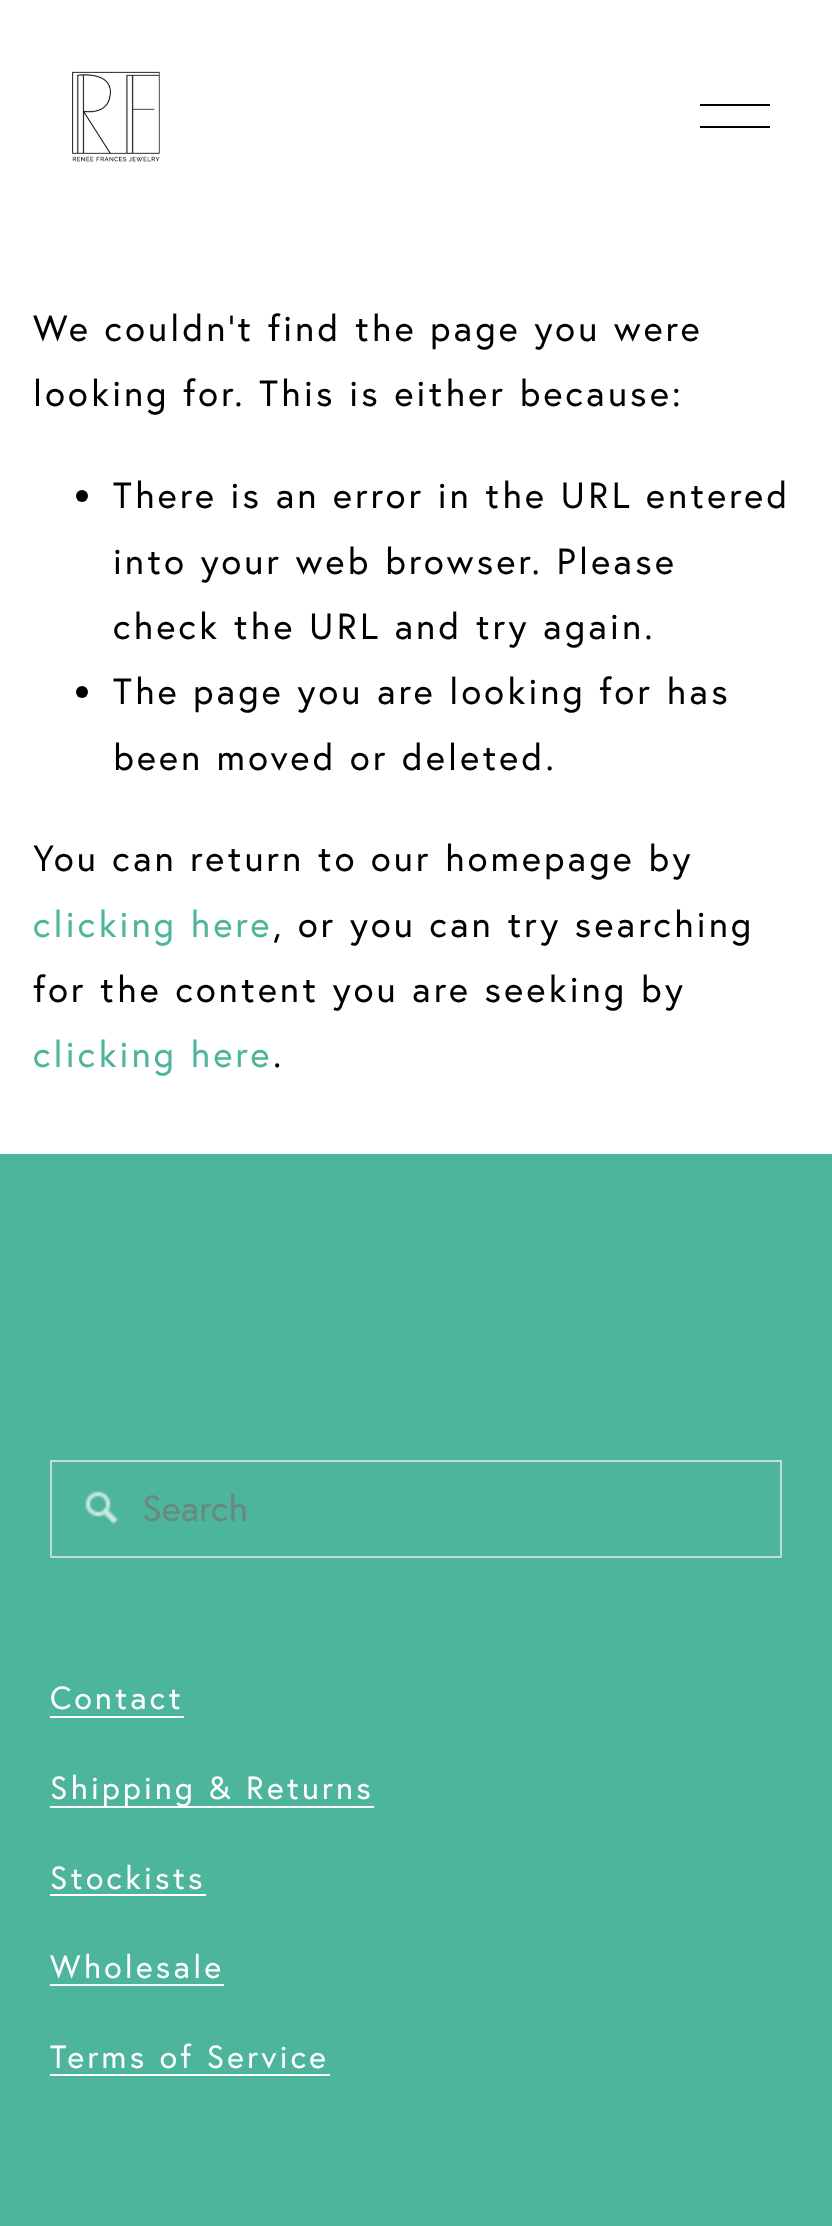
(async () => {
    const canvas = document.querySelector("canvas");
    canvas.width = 832;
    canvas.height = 2226;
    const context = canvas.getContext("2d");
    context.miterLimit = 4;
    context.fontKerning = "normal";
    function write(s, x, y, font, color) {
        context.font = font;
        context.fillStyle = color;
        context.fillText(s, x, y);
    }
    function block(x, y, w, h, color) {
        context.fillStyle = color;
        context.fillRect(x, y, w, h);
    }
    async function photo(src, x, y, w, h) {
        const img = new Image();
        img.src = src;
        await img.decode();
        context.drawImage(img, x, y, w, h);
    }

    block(0, 0, 832, 2226, "rgb(255, 255, 255)");
    await photo("media/1.png", 72, 71, 88, 91);
    block(700, 104, 70, 2, "rgb(0, 0, 0)");
    block(700, 126, 70, 2, "rgb(0, 0, 0)");
    context.letterSpacing = "3.25px";
    write("We couldn't find the page you were", 33, 341, "36.3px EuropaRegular", "rgb(0, 0, 0)");
    write("looking for. This is either because:", 33, 406, "36.3px EuropaRegular", "rgb(0, 0, 0)");
    context.beginPath();
    context.arc(82, 496, 6, 0, Math.PI * 2);
    context.fill();
    write("There is an error in the URL entered", 113, 508, "36.3px EuropaRegular", "rgb(0, 0, 0)");
    write("into your web browser. Please", 113, 574, "36.3px EuropaRegular", "rgb(0, 0, 0)");
    write("check the URL and try again.", 113, 639, "36.3px EuropaRegular", "rgb(0, 0, 0)");
    context.beginPath();
    context.arc(82, 692, 6, 0, Math.PI * 2);
    context.fill();
    write("The page you are looking for has", 113, 704, "36.3px EuropaRegular", "rgb(0, 0, 0)");
    write("been moved or deleted.", 113, 770, "36.3px EuropaRegular", "rgb(0, 0, 0)");
    write("You can return to our homepage by", 33, 871, "36.3px EuropaRegular", "rgb(0, 0, 0)");
    write("clicking here", 33, 937, "36.3px EuropaRegular", "rgb(77, 181, 155)");
    write(", or you can try searching", 273, 937, "36.3px EuropaRegular", "rgb(0, 0, 0)");
    write("for the content you are seeking by", 33, 1002, "36.3px EuropaRegular", "rgb(0, 0, 0)");
    write("clicking here", 33, 1067, "36.3px EuropaRegular", "rgb(77, 181, 155)");
    write(".", 273, 1067, "36.3px EuropaRegular", "rgb(0, 0, 0)");
    block(0, 1154, 832, 1072, "rgb(77, 181, 155)");
    await photo("media/2.png", 85, 1491, 34, 34);
    context.strokeStyle = "rgb(190, 221, 213)";
    context.lineWidth = 2;
    context.strokeRect(51, 1461, 730, 96);
    context.letterSpacing = "0px";
    write("Search", 142, 1521, "36.3px EuropaRegular", "rgb(105, 136, 128)");
    context.letterSpacing = "3.25px";
    write("Contact", 50, 1709, "32px EuropaRegular", "rgb(255, 255, 255)");
    block(50, 1716, 134, 2, "rgb(255, 255, 255)");
    block(50, 1806, 324, 2, "rgb(255, 255, 255)");
    write("Shipping & Returns", 50, 1799, "32px EuropaRegular", "rgb(255, 255, 255)");
    write("Stockists", 50, 1889, "32px EuropaRegular", "rgb(255, 255, 255)");
    block(50, 1894, 156, 2, "rgb(255, 255, 255)");
    write("Wholesale", 50, 1978, "32px EuropaRegular", "rgb(255, 255, 255)");
    block(50, 1984, 174, 2, "rgb(255, 255, 255)");
    write("Terms of Service", 50, 2068, "32px EuropaRegular", "rgb(255, 255, 255)");
    block(50, 2074, 280, 2, "rgb(255, 255, 255)");
})();
